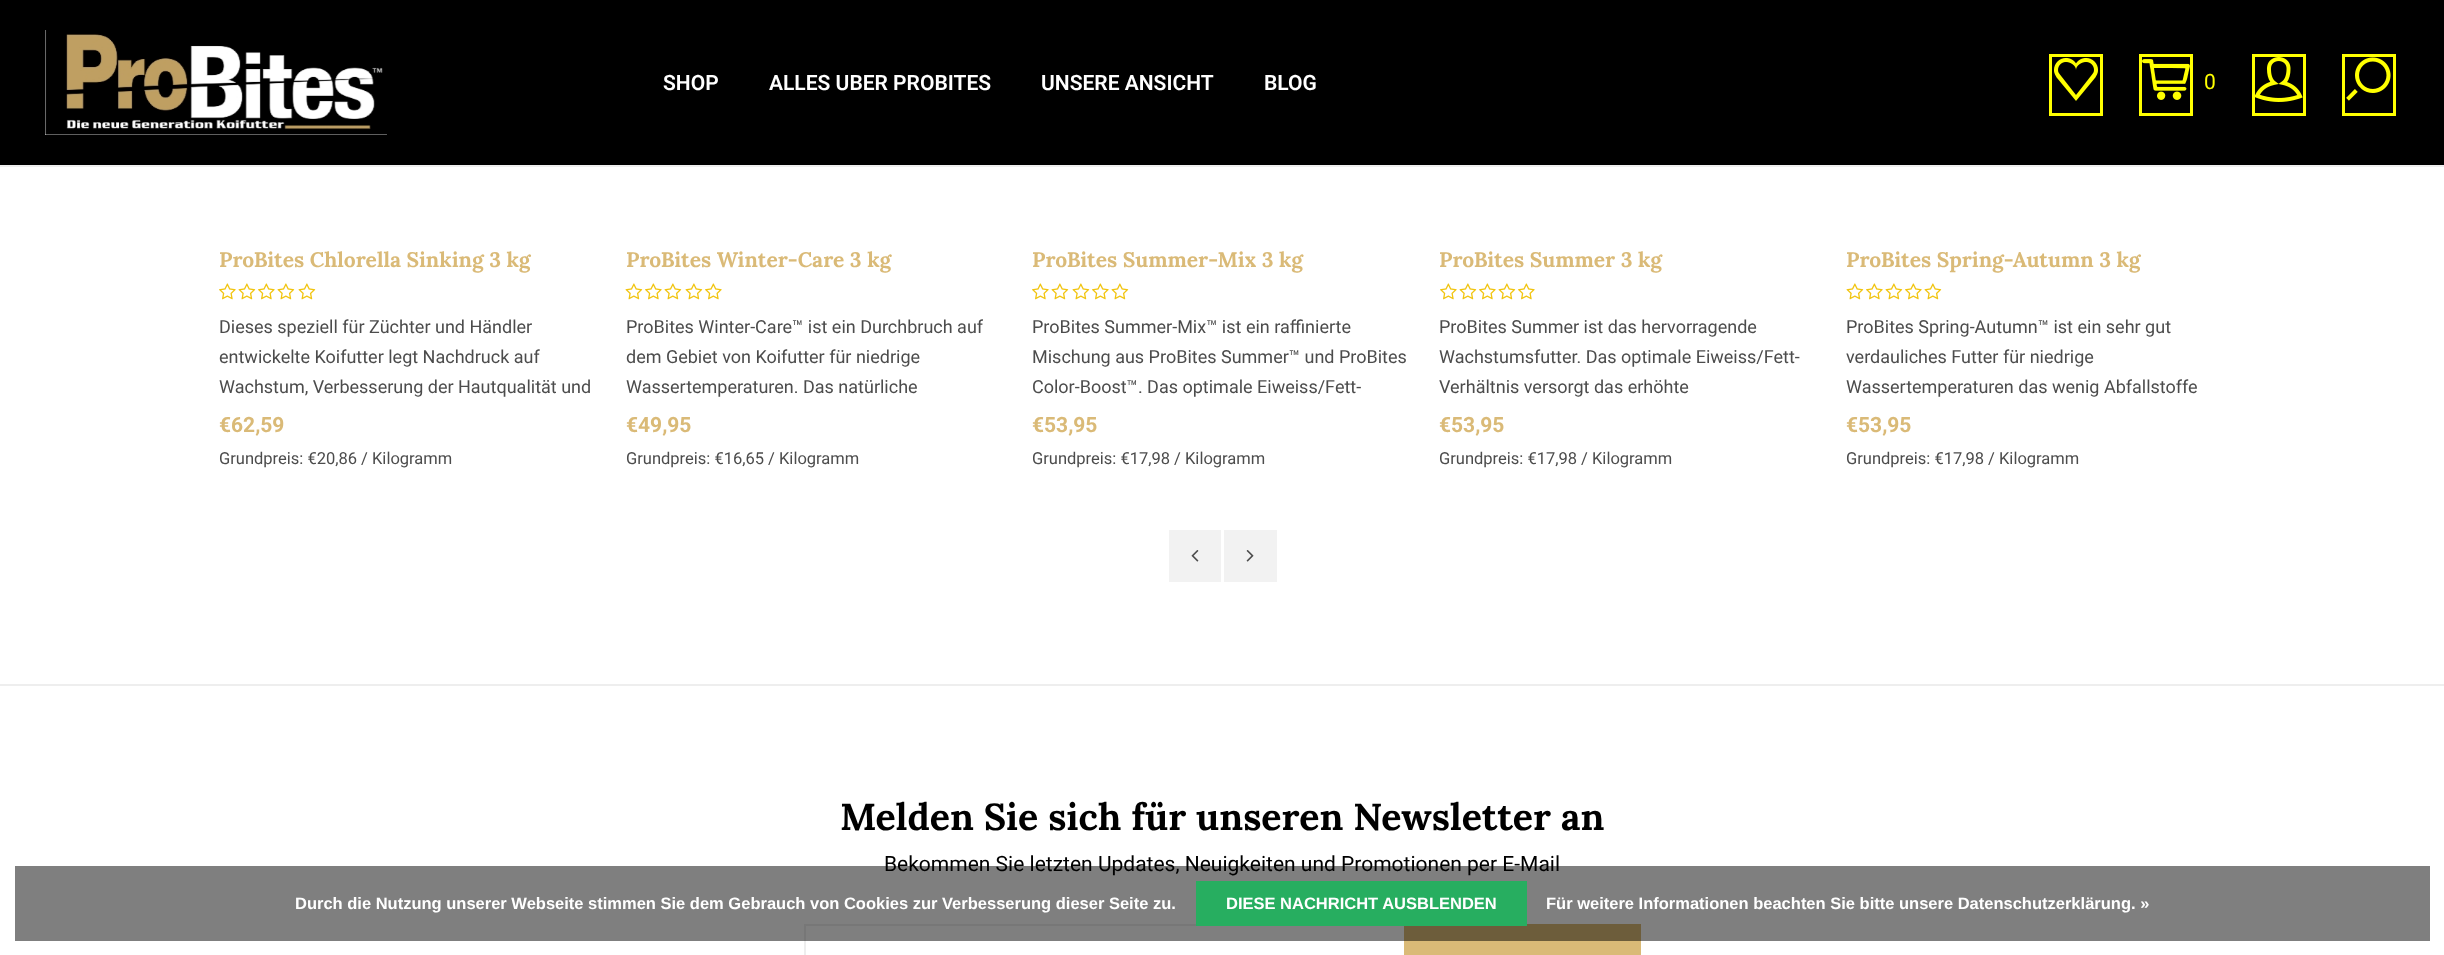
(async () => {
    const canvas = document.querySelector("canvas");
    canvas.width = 2444;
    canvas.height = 955;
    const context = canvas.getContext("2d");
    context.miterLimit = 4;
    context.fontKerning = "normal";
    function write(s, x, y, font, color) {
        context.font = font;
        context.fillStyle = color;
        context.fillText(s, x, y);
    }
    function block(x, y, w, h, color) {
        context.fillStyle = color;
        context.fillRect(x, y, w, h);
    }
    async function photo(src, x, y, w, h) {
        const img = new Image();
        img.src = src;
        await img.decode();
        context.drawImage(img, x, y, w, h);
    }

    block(0, 0, 2444, 955, "rgb(255, 255, 255)");
    block(0, 0, 2444, 165, "rgb(0, 0, 0)");
    block(0, 165, 2444, 2, "rgb(238, 238, 238)");
    await photo("media/1.png", 45, 30, 342, 105);
    write("SHOP", 663, 90, "600 21px Roboto", "rgb(255, 255, 255)");
    write("ALLES UBER PROBITES", 769, 90, "600 21px Roboto", "rgb(255, 255, 255)");
    write("UNSERE ANSICHT", 1041, 90, "600 21px Roboto", "rgb(255, 255, 255)");
    write("BLOG", 1264, 90, "600 21px Roboto", "rgb(255, 255, 255)");
    context.strokeStyle = "rgb(255, 255, 0)";
    context.lineWidth = 3;
    context.strokeRect(2050.5, 55.5, 51, 59);
    await photo("media/2.png", 2054, 57, 44, 44);
    context.strokeRect(2140.5, 55.5, 51, 59);
    await photo("media/3.png", 2142, 59, 48, 41);
    write("0", 2204, 89, "21px Roboto", "rgb(255, 255, 0)");
    context.strokeRect(2253.5, 55.5, 51, 59);
    await photo("media/4.png", 2255, 57, 48, 45);
    context.strokeRect(2343.5, 55.5, 51, 59);
    await photo("media/5.png", 2346, 57, 45, 44);
    block(0, 684, 2444, 2, "rgb(238, 238, 238)");
    write("ProBites Chlorella Sinking 3 kg", 219, 267, "bold 21px Lora", "rgb(218, 186, 119)");
    await photo("media/6.png", 219, 283, 17, 17);
    await photo("media/7.png", 238, 283, 18, 17);
    await photo("media/6.png", 258, 283, 17, 17);
    await photo("media/7.png", 277, 283, 18, 17);
    await photo("media/7.png", 298, 283, 18, 17);
    write("Dieses speziell für Züchter und Händler", 219, 333, "18px Roboto", "rgb(76, 76, 76)");
    write("entwickelte Koifutter legt Nachdruck auf", 219, 363, "18px Roboto", "rgb(76, 76, 76)");
    write("Wachstum, Verbesserung der Hautqualität und", 219, 393, "18px Roboto", "rgb(76, 76, 76)");
    write("€62,59", 219, 432, "bold 21px Roboto", "rgb(218, 186, 119)");
    write("Grundpreis: €20,86 / Kilogramm", 219, 464, "16.5px Roboto", "rgb(76, 76, 76)");
    write("ProBites Winter-Care 3 kg", 626, 267, "bold 21px Lora", "rgb(218, 186, 119)");
    await photo("media/7.png", 625, 283, 18, 17);
    await photo("media/6.png", 645, 283, 17, 17);
    await photo("media/7.png", 664, 283, 18, 17);
    await photo("media/7.png", 685, 283, 18, 17);
    await photo("media/6.png", 705, 283, 17, 17);
    write("ProBites Winter-Care™ ist ein Durchbruch auf", 626, 333, "18px Roboto", "rgb(76, 76, 76)");
    write("dem Gebiet von Koifutter für niedrige", 626, 363, "18px Roboto", "rgb(76, 76, 76)");
    write("Wassertemperaturen. Das natürliche", 626, 393, "18px Roboto", "rgb(76, 76, 76)");
    write("€49,95", 626, 432, "bold 21px Roboto", "rgb(218, 186, 119)");
    write("Grundpreis: €16,65 / Kilogramm", 626, 464, "16.5px Roboto", "rgb(76, 76, 76)");
    write("ProBites Summer-Mix 3 kg", 1032, 267, "bold 21px Lora", "rgb(218, 186, 119)");
    await photo("media/6.png", 1032, 283, 17, 17);
    await photo("media/7.png", 1051, 283, 18, 17);
    await photo("media/7.png", 1072, 283, 18, 17);
    await photo("media/6.png", 1092, 283, 17, 17);
    await photo("media/7.png", 1111, 283, 18, 17);
    write("ProBites Summer-Mix™ ist ein raffinierte", 1032, 333, "18px Roboto", "rgb(76, 76, 76)");
    write("Mischung aus ProBites Summer™ und ProBites", 1032, 363, "18px Roboto", "rgb(76, 76, 76)");
    write("Color-Boost™. Das optimale Eiweiss/Fett-", 1032, 393, "18px Roboto", "rgb(76, 76, 76)");
    write("€53,95", 1032, 432, "bold 21px Roboto", "rgb(218, 186, 119)");
    write("Grundpreis: €17,98 / Kilogramm", 1032, 464, "16.5px Roboto", "rgb(76, 76, 76)");
    write("ProBites Summer 3 kg", 1439, 267, "bold 21px Lora", "rgb(218, 186, 119)");
    await photo("media/6.png", 1440, 283, 17, 17);
    await photo("media/7.png", 1459, 283, 18, 17);
    await photo("media/6.png", 1479, 283, 17, 17);
    await photo("media/7.png", 1498, 283, 18, 17);
    await photo("media/6.png", 1518, 283, 17, 17);
    write("ProBites Summer ist das hervorragende", 1439, 333, "18px Roboto", "rgb(76, 76, 76)");
    write("Wachstumsfutter. Das optimale Eiweiss/Fett-", 1439, 363, "18px Roboto", "rgb(76, 76, 76)");
    write("Verhältnis versorgt das erhöhte", 1439, 393, "18px Roboto", "rgb(76, 76, 76)");
    write("€53,95", 1439, 432, "bold 21px Roboto", "rgb(218, 186, 119)");
    write("Grundpreis: €17,98 / Kilogramm", 1439, 464, "16.5px Roboto", "rgb(76, 76, 76)");
    write("ProBites Spring-Autumn 3 kg", 1846, 267, "bold 21px Lora", "rgb(218, 186, 119)");
    await photo("media/7.png", 1846, 283, 18, 17);
    await photo("media/6.png", 1866, 283, 17, 17);
    await photo("media/7.png", 1885, 283, 18, 17);
    await photo("media/6.png", 1905, 283, 17, 17);
    await photo("media/7.png", 1924, 283, 18, 17);
    write("ProBites Spring-Autumn™ ist ein sehr gut", 1846, 333, "18px Roboto", "rgb(76, 76, 76)");
    write("verdauliches Futter für niedrige", 1846, 363, "18px Roboto", "rgb(76, 76, 76)");
    write("Wassertemperaturen das wenig Abfallstoffe", 1846, 393, "18px Roboto", "rgb(76, 76, 76)");
    write("€53,95", 1846, 432, "bold 21px Roboto", "rgb(218, 186, 119)");
    write("Grundpreis: €17,98 / Kilogramm", 1846, 464, "16.5px Roboto", "rgb(76, 76, 76)");
    block(1169, 530, 52, 52, "rgb(242, 242, 242)");
    await photo("media/8.png", 1191, 550, 8, 12);
    block(1224, 530, 53, 52, "rgb(242, 242, 242)");
    await photo("media/9.png", 1246, 550, 8, 12);
    write("Melden Sie sich für unseren Newsletter an", 840, 830, "bold 37.5px Lora", "rgb(0, 0, 0)");
    write("Bekommen Sie letzten Updates, Neuigkeiten und Promotionen per E-Mail", 884, 871, "21px Roboto", "rgb(0, 0, 0)");
    block(804, 924, 392, 2, "rgb(238, 238, 238)");
    block(804, 924, 2, 31, "rgb(238, 238, 238)");
    block(1404, 924, 237, 31, "rgb(218, 186, 119)");
    block(15, 866, 2415, 75, "rgba(0, 0, 0, 0.5)");
    write("Durch die Nutzung unserer Webseite stimmen Sie dem Gebrauch von Cookies zur Verbesserung dieser Seite zu.", 295, 909, "bold 16.5px Liberation Sans", "rgb(255, 255, 255)");
    block(1196, 881, 331, 45, "rgb(39, 174, 96)");
    write("DIESE NACHRICHT AUSBLENDEN", 1226, 909, "bold 16.5px Liberation Sans", "rgb(255, 255, 255)");
    write("Für weitere Informationen beachten Sie bitte unsere Datenschutzerklärung. »", 1546, 909, "bold 16.5px Liberation Sans", "rgb(255, 255, 255)");
})();
